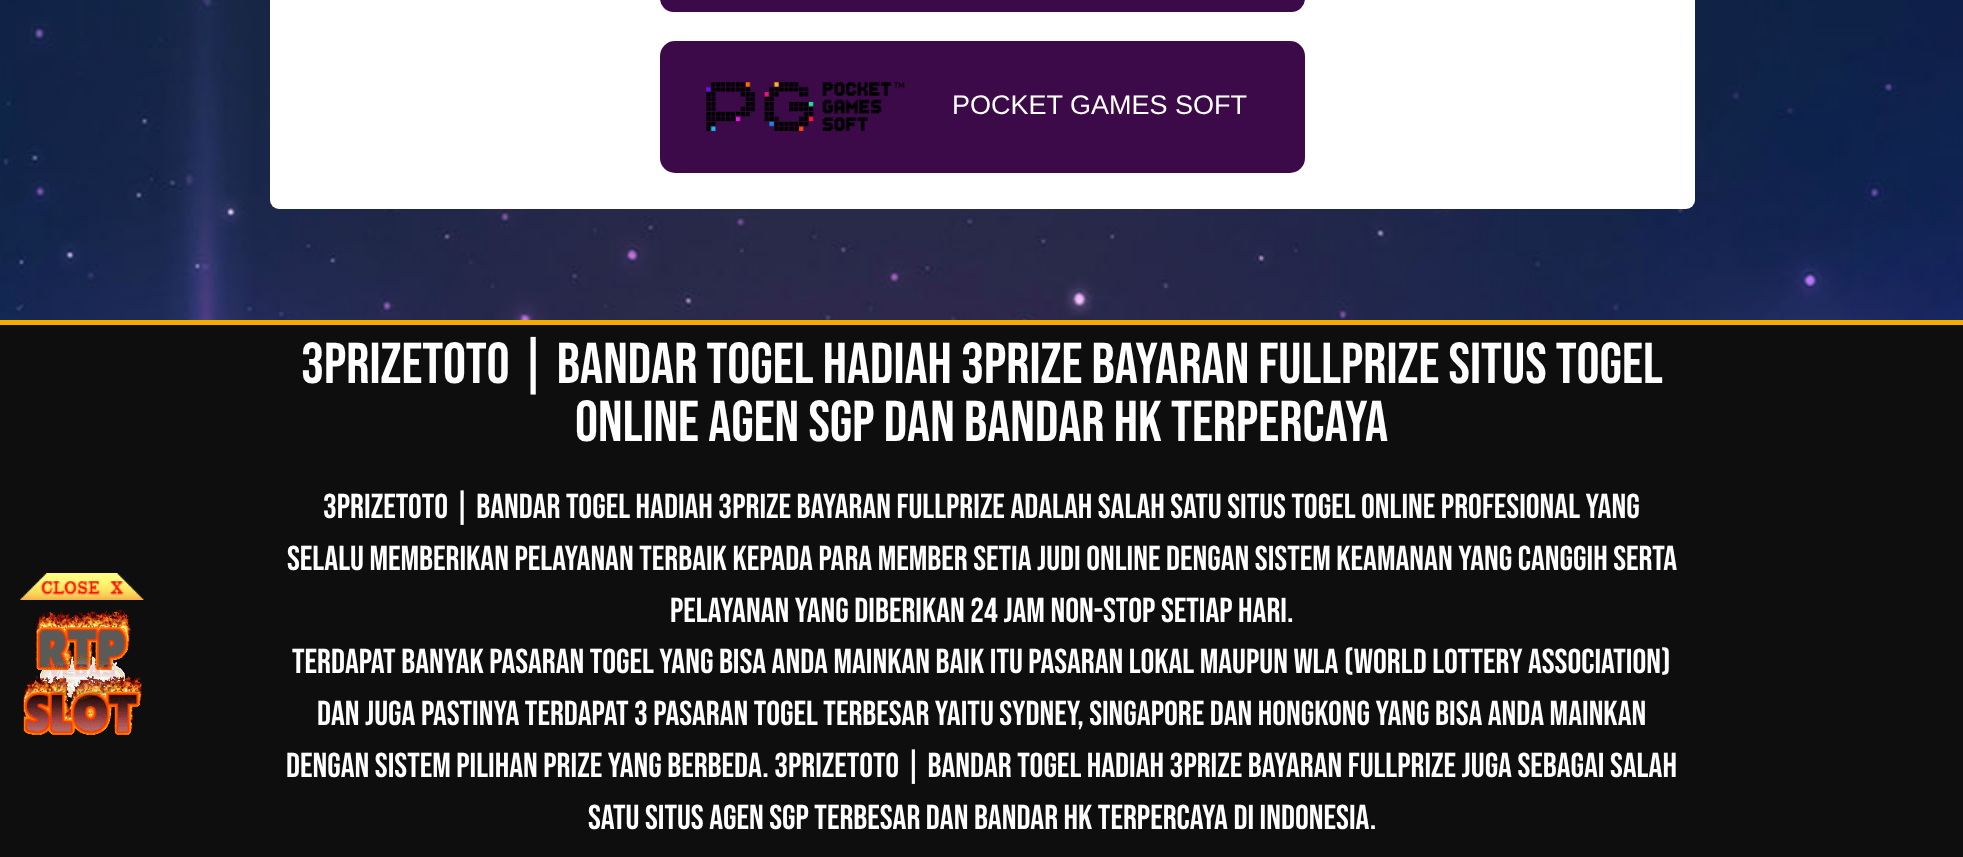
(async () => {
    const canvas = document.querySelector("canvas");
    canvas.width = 1963;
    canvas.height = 857;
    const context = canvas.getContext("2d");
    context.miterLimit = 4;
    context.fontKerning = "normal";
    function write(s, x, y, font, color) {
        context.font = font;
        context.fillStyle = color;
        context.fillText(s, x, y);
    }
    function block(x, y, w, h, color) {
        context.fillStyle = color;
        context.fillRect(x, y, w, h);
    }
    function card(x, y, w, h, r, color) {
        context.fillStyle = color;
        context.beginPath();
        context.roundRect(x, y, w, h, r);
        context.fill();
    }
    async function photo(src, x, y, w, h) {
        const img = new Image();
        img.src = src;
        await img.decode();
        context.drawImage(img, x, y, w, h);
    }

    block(0, 0, 1963, 857, "rgb(255, 255, 255)");
    await photo("media/1.png", 0, 0, 1963, 320);
    card(270, -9, 1425, 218, 9, "rgb(255, 255, 255)");
    card(660, -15, 645, 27, 15, "rgb(61, 10, 73)");
    card(660, 41, 645, 132, 15, "rgb(61, 10, 73)");
    await photo("media/2.png", 706, 82, 199, 50);
    write("POCKET GAMES SOFT", 952, 114, "27px Liberation Sans", "rgb(255, 255, 255)");
    block(0, 325, 1963, 532, "rgb(14, 14, 14)");
    await photo("media/3.png", 20, 573, 124, 27);
    await photo("media/4.png", 23, 610, 119, 125);
    block(0, 320, 1963, 5, "rgb(243, 172, 0)");
    write("3PRIZETOTO | BANDAR TOGEL HADIAH 3PRIZE BAYARAN FULLPRIZE SITUS TOGEL", 301, 383, "57.6px Bebas Neue", "rgb(255, 255, 255)");
    write("ONLINE AGEN SGP DAN BANDAR HK TERPERCAYA", 575, 441, "57.6px Bebas Neue", "rgb(255, 255, 255)");
    write("3PRIZETOTO | BANDAR TOGEL HADIAH 3PRIZE BAYARAN FULLPRIZE ADALAH SALAH SATU SITUS TOGEL ONLINE PROFESIONAL YANG", 323, 518, "34.5px Bebas Neue", "rgb(255, 255, 255)");
    write("SELALU MEMBERIKAN PELAYANAN TERBAIK KEPADA PARA MEMBER SETIA JUDI ONLINE DENGAN SISTEM KEAMANAN YANG CANGGIH SERTA", 287, 570, "34.5px Bebas Neue", "rgb(255, 255, 255)");
    write("PELAYANAN YANG DIBERIKAN 24 JAM NON-STOP SETIAP HARI.", 670, 622, "34.5px Bebas Neue", "rgb(255, 255, 255)");
    write("TERDAPAT BANYAK PASARAN TOGEL YANG BISA ANDA MAINKAN BAIK ITU PASARAN LOKAL MAUPUN WLA (WORLD LOTTERY ASSOCIATION)", 292, 673, "34.5px Bebas Neue", "rgb(255, 255, 255)");
    write("DAN JUGA PASTINYA TERDAPAT 3 PASARAN TOGEL TERBESAR YAITU SYDNEY, SINGAPORE DAN HONGKONG YANG BISA ANDA MAINKAN", 317, 725, "34.5px Bebas Neue", "rgb(255, 255, 255)");
    write("DENGAN SISTEM PILIHAN PRIZE YANG BERBEDA. 3PRIZETOTO | BANDAR TOGEL HADIAH 3PRIZE BAYARAN FULLPRIZE JUGA SEBAGAI SALAH", 286, 777, "34.5px Bebas Neue", "rgb(255, 255, 255)");
    write("SATU SITUS AGEN SGP TERBESAR DAN BANDAR HK TERPERCAYA DI INDONESIA.", 588, 829, "34.5px Bebas Neue", "rgb(255, 255, 255)");
})();
